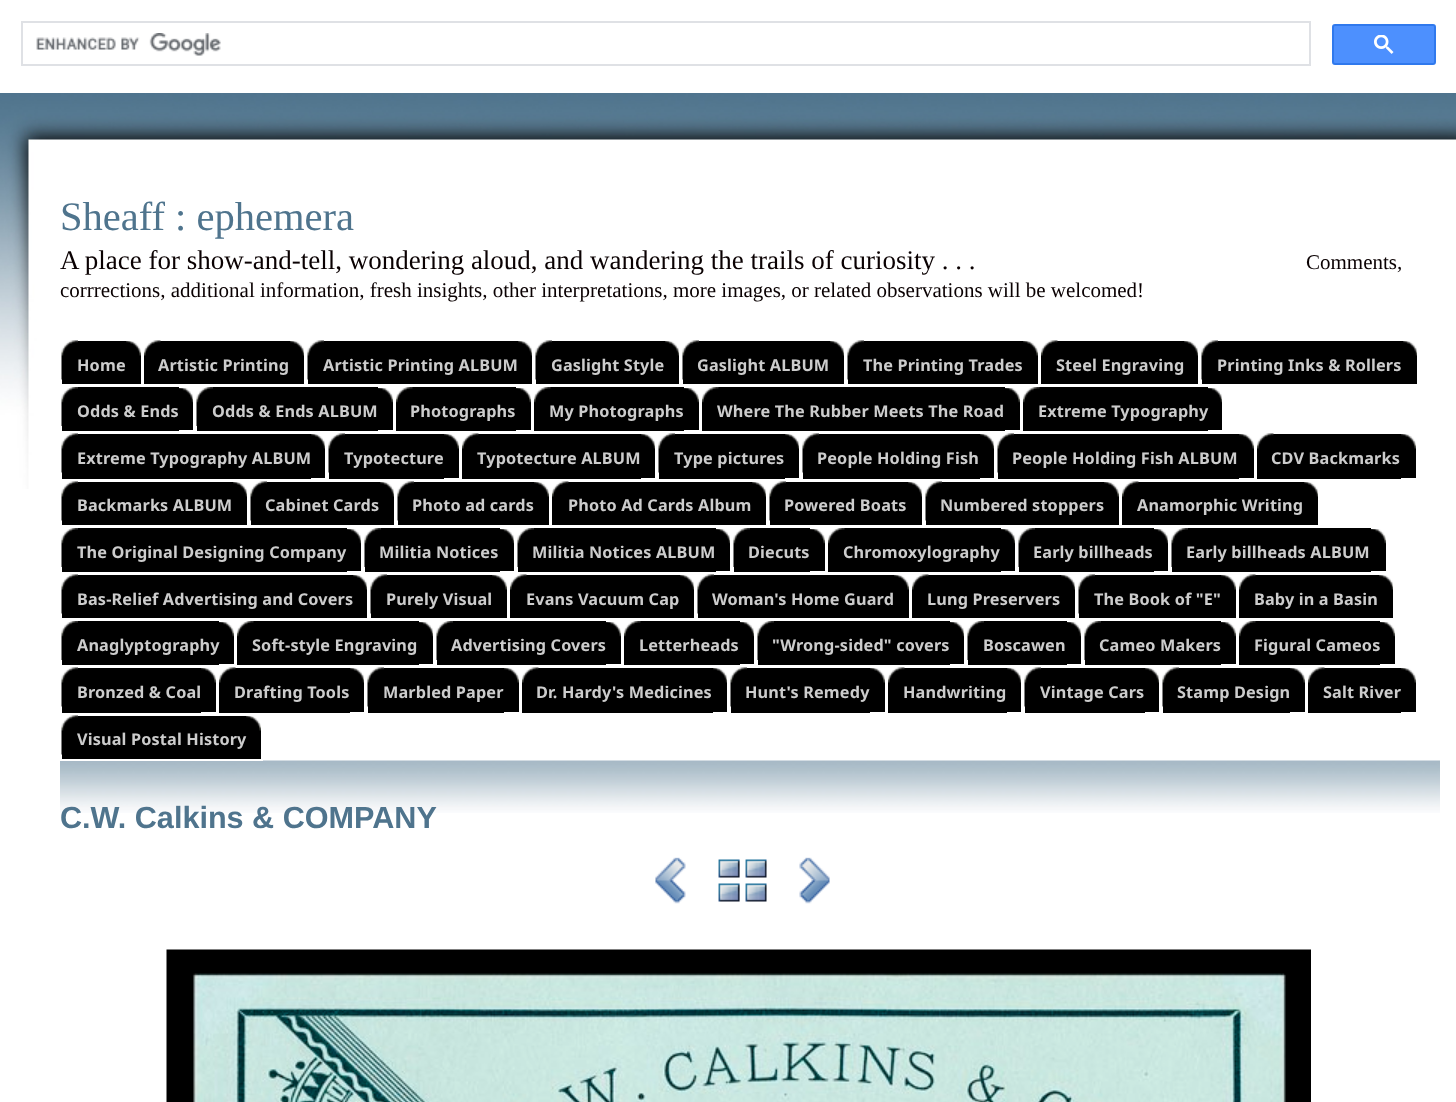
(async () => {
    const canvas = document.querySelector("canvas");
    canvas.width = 1456;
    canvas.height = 1102;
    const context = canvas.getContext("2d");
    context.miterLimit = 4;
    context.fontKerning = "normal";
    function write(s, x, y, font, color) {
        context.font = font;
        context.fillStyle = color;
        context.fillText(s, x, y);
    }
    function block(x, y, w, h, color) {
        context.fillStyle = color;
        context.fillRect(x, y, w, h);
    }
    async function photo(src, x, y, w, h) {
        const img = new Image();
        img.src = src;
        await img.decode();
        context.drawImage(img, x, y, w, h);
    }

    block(0, 0, 1456, 1102, "rgb(255, 255, 255)");
    context.strokeStyle = "rgb(223, 225, 229)";
    context.lineWidth = 2;
    context.strokeRect(22, 22, 1288, 43);
    await photo("media/1.png", 36, 33, 185, 23);
    context.fillStyle = "rgb(77, 144, 254)";
    context.beginPath();
    context.roundRect(1333, 25, 102, 39, 2);
    context.fill();
    context.strokeStyle = "rgb(48, 121, 237)";
    context.stroke();
    await photo("media/2.png", 1374, 35, 20, 19);
    await photo("media/3.png", 0, 93, 1456, 396);
    write("Sheaff : ephemera", 60, 230, "40.5px Liberation Serif", "rgb(79, 116, 141)");
    write("A place for show-and-tell, wondering aloud, and wandering the trails of curiosity . . .", 60, 269, "27px Liberation Serif", "rgb(10, 1, 2)");
    write("Comments,", 1306, 269, "21px Liberation Serif", "rgb(10, 1, 2)");
    write("corrrections, additional information, fresh insights, other interpretations, more images, or related observations will be welcomed!", 60, 297, "21px Liberation Serif", "rgb(10, 1, 2)");
    block(126, 356, 15, 28, "rgb(0, 0, 0)");
    await photo("media/4.png", 126, 341, 15, 15);
    block(62, 341, 64, 43, "rgb(0, 0, 0)");
    await photo("media/5.png", 61, 340, 17, 40);
    context.letterSpacing = "0.15px";
    write("Home", 77, 371, "bold 16.25px Noto Sans", "rgb(204, 204, 204)");
    block(290, 356, 14, 28, "rgb(0, 0, 0)");
    await photo("media/6.png", 290, 341, 14, 15);
    block(144, 341, 146, 43, "rgb(0, 0, 0)");
    await photo("media/7.png", 144, 340, 17, 16);
    write("Artistic Printing", 158, 371, "bold 16.25px Noto Sans", "rgb(204, 204, 204)");
    block(518, 356, 14, 28, "rgb(0, 0, 0)");
    await photo("media/8.png", 518, 341, 14, 15);
    block(308, 341, 210, 43, "rgb(0, 0, 0)");
    await photo("media/5.png", 307, 340, 17, 40);
    write("Artistic Printing ALBUM", 323, 371, "bold 16.25px Noto Sans", "rgb(204, 204, 204)");
    block(665, 356, 14, 28, "rgb(0, 0, 0)");
    await photo("media/8.png", 665, 341, 14, 15);
    block(536, 341, 129, 43, "rgb(0, 0, 0)");
    await photo("media/9.png", 535, 340, 17, 40);
    write("Gaslight Style", 551, 371, "bold 16.25px Noto Sans", "rgb(204, 204, 204)");
    block(830, 356, 14, 28, "rgb(0, 0, 0)");
    await photo("media/8.png", 830, 341, 14, 15);
    block(683, 341, 147, 43, "rgb(0, 0, 0)");
    await photo("media/9.png", 682, 340, 17, 40);
    write("Gaslight ALBUM", 697, 371, "bold 16.25px Noto Sans", "rgb(204, 204, 204)");
    block(1023, 356, 15, 28, "rgb(0, 0, 0)");
    await photo("media/4.png", 1023, 341, 15, 15);
    block(848, 341, 175, 43, "rgb(0, 0, 0)");
    await photo("media/5.png", 847, 340, 17, 40);
    write("The Printing Trades", 863, 371, "bold 16.25px Noto Sans", "rgb(204, 204, 204)");
    block(1184, 356, 14, 28, "rgb(0, 0, 0)");
    await photo("media/6.png", 1184, 341, 14, 15);
    block(1041, 341, 143, 43, "rgb(0, 0, 0)");
    await photo("media/10.png", 1041, 340, 17, 16);
    write("Steel Engraving", 1056, 371, "bold 16.25px Noto Sans", "rgb(204, 204, 204)");
    block(1403, 356, 14, 28, "rgb(0, 0, 0)");
    await photo("media/8.png", 1403, 341, 14, 15);
    block(1202, 341, 201, 43, "rgb(0, 0, 0)");
    await photo("media/9.png", 1201, 340, 17, 40);
    write("Printing Inks & Rollers", 1217, 371, "bold 16.25px Noto Sans", "rgb(204, 204, 204)");
    block(179, 403, 14, 27, "rgb(0, 0, 0)");
    await photo("media/11.png", 179, 388, 14, 15);
    block(62, 387, 117, 44, "rgb(0, 0, 0)");
    await photo("media/12.png", 61, 387, 17, 39);
    write("Odds & Ends", 77, 417, "bold 16.25px Noto Sans", "rgb(204, 204, 204)");
    block(378, 403, 15, 27, "rgb(0, 0, 0)");
    await photo("media/13.png", 378, 388, 15, 15);
    block(197, 387, 181, 44, "rgb(0, 0, 0)");
    await photo("media/12.png", 196, 387, 17, 39);
    write("Odds & Ends ALBUM", 212, 417, "bold 16.25px Noto Sans", "rgb(204, 204, 204)");
    block(516, 403, 15, 27, "rgb(0, 0, 0)");
    await photo("media/14.png", 516, 388, 15, 15);
    block(396, 387, 120, 44, "rgb(0, 0, 0)");
    await photo("media/15.png", 396, 387, 17, 16);
    write("Photographs", 410, 417, "bold 16.25px Noto Sans", "rgb(204, 204, 204)");
    block(684, 403, 15, 27, "rgb(0, 0, 0)");
    await photo("media/13.png", 684, 388, 15, 15);
    block(534, 387, 150, 44, "rgb(0, 0, 0)");
    await photo("media/16.png", 534, 387, 17, 16);
    write("My Photographs", 549, 417, "bold 16.25px Noto Sans", "rgb(204, 204, 204)");
    block(1005, 403, 15, 27, "rgb(0, 0, 0)");
    await photo("media/17.png", 1005, 388, 15, 15);
    block(702, 387, 303, 44, "rgb(0, 0, 0)");
    await photo("media/15.png", 702, 387, 17, 16);
    write("Where The Rubber Meets The Road", 717, 417, "bold 16.25px Noto Sans", "rgb(204, 204, 204)");
    block(1208, 403, 14, 27, "rgb(0, 0, 0)");
    await photo("media/18.png", 1208, 388, 14, 15);
    block(1023, 387, 185, 44, "rgb(0, 0, 0)");
    await photo("media/15.png", 1023, 387, 17, 16);
    write("Extreme Typography", 1038, 417, "bold 16.25px Noto Sans", "rgb(204, 204, 204)");
    block(311, 449, 14, 29, "rgb(0, 0, 0)");
    await photo("media/6.png", 311, 434, 14, 15);
    block(62, 434, 249, 45, "rgb(0, 0, 0)");
    await photo("media/5.png", 61, 433, 17, 40);
    write("Extreme Typography ALBUM", 77, 464, "bold 16.25px Noto Sans", "rgb(204, 204, 204)");
    block(444, 449, 15, 29, "rgb(0, 0, 0)");
    await photo("media/19.png", 444, 434, 15, 15);
    block(329, 434, 115, 45, "rgb(0, 0, 0)");
    await photo("media/5.png", 328, 433, 17, 40);
    write("Typotecture", 344, 464, "bold 16.25px Noto Sans", "rgb(204, 204, 204)");
    block(641, 449, 14, 29, "rgb(0, 0, 0)");
    await photo("media/8.png", 641, 434, 14, 15);
    block(462, 434, 179, 45, "rgb(0, 0, 0)");
    await photo("media/10.png", 462, 433, 17, 16);
    write("Typotecture ALBUM", 477, 464, "bold 16.25px Noto Sans", "rgb(204, 204, 204)");
    block(785, 449, 14, 29, "rgb(0, 0, 0)");
    await photo("media/8.png", 785, 434, 14, 15);
    block(659, 434, 126, 45, "rgb(0, 0, 0)");
    await photo("media/9.png", 658, 433, 17, 40);
    write("Type pictures", 674, 464, "bold 16.25px Noto Sans", "rgb(204, 204, 204)");
    block(980, 449, 14, 29, "rgb(0, 0, 0)");
    await photo("media/8.png", 980, 434, 14, 15);
    block(803, 434, 177, 45, "rgb(0, 0, 0)");
    await photo("media/5.png", 802, 433, 17, 40);
    write("People Holding Fish", 817, 464, "bold 16.25px Noto Sans", "rgb(204, 204, 204)");
    block(1239, 449, 15, 29, "rgb(0, 0, 0)");
    await photo("media/4.png", 1239, 434, 15, 15);
    block(998, 434, 241, 45, "rgb(0, 0, 0)");
    await photo("media/5.png", 997, 433, 17, 40);
    write("People Holding Fish ALBUM", 1012, 464, "bold 16.25px Noto Sans", "rgb(204, 204, 204)");
    block(1401, 449, 15, 29, "rgb(0, 0, 0)");
    await photo("media/19.png", 1401, 434, 15, 15);
    block(1257, 434, 144, 45, "rgb(0, 0, 0)");
    await photo("media/10.png", 1257, 433, 17, 16);
    write("CDV Backmarks", 1271, 464, "bold 16.25px Noto Sans", "rgb(204, 204, 204)");
    block(233, 497, 14, 28, "rgb(0, 0, 0)");
    await photo("media/8.png", 233, 482, 14, 15);
    block(62, 482, 171, 43, "rgb(0, 0, 0)");
    await photo("media/5.png", 61, 481, 17, 40);
    write("Backmarks ALBUM", 77, 511, "bold 16.25px Noto Sans", "rgb(204, 204, 204)");
    block(380, 497, 14, 28, "rgb(0, 0, 0)");
    await photo("media/6.png", 380, 482, 14, 15);
    block(251, 482, 129, 43, "rgb(0, 0, 0)");
    await photo("media/5.png", 250, 481, 17, 40);
    write("Cabinet Cards", 265, 511, "bold 16.25px Noto Sans", "rgb(204, 204, 204)");
    block(534, 497, 15, 28, "rgb(0, 0, 0)");
    await photo("media/19.png", 534, 482, 15, 15);
    block(398, 482, 136, 43, "rgb(0, 0, 0)");
    await photo("media/9.png", 397, 481, 17, 40);
    write("Photo ad cards", 412, 511, "bold 16.25px Noto Sans", "rgb(204, 204, 204)");
    block(752, 497, 14, 28, "rgb(0, 0, 0)");
    await photo("media/6.png", 752, 482, 14, 15);
    block(552, 482, 200, 43, "rgb(0, 0, 0)");
    await photo("media/7.png", 552, 481, 17, 16);
    write("Photo Ad Cards Album", 568, 511, "bold 16.25px Noto Sans", "rgb(204, 204, 204)");
    block(908, 497, 14, 28, "rgb(0, 0, 0)");
    await photo("media/8.png", 908, 482, 14, 15);
    block(770, 482, 138, 43, "rgb(0, 0, 0)");
    await photo("media/5.png", 769, 481, 17, 40);
    write("Powered Boats", 784, 511, "bold 16.25px Noto Sans", "rgb(204, 204, 204)");
    block(1104, 497, 15, 28, "rgb(0, 0, 0)");
    await photo("media/4.png", 1104, 482, 15, 15);
    block(926, 482, 178, 43, "rgb(0, 0, 0)");
    await photo("media/5.png", 925, 481, 17, 40);
    write("Numbered stoppers", 940, 511, "bold 16.25px Noto Sans", "rgb(204, 204, 204)");
    block(1304, 497, 14, 28, "rgb(0, 0, 0)");
    await photo("media/8.png", 1304, 482, 14, 15);
    block(1122, 482, 182, 43, "rgb(0, 0, 0)");
    await photo("media/10.png", 1122, 481, 17, 16);
    write("Anamorphic Writing", 1137, 511, "bold 16.25px Noto Sans", "rgb(204, 204, 204)");
    block(347, 544, 14, 27, "rgb(0, 0, 0)");
    await photo("media/18.png", 347, 529, 14, 15);
    block(62, 528, 285, 44, "rgb(0, 0, 0)");
    await photo("media/12.png", 61, 528, 17, 39);
    write("The Original Designing Company", 77, 558, "bold 16.25px Noto Sans", "rgb(204, 204, 204)");
    block(500, 544, 14, 27, "rgb(0, 0, 0)");
    await photo("media/20.png", 500, 529, 14, 15);
    block(365, 528, 135, 44, "rgb(0, 0, 0)");
    await photo("media/21.png", 364, 528, 17, 39);
    write("Militia Notices", 379, 558, "bold 16.25px Noto Sans", "rgb(204, 204, 204)");
    block(716, 544, 14, 27, "rgb(0, 0, 0)");
    await photo("media/18.png", 716, 529, 14, 15);
    block(518, 528, 198, 44, "rgb(0, 0, 0)");
    await photo("media/22.png", 517, 528, 17, 39);
    write("Militia Notices ALBUM", 532, 558, "bold 16.25px Noto Sans", "rgb(204, 204, 204)");
    block(810, 544, 15, 27, "rgb(0, 0, 0)");
    await photo("media/17.png", 810, 529, 15, 15);
    block(734, 528, 76, 44, "rgb(0, 0, 0)");
    await photo("media/21.png", 733, 528, 17, 39);
    write("Diecuts", 748, 558, "bold 16.25px Noto Sans", "rgb(204, 204, 204)");
    block(1001, 544, 14, 27, "rgb(0, 0, 0)");
    await photo("media/11.png", 1001, 529, 14, 15);
    block(828, 528, 173, 44, "rgb(0, 0, 0)");
    await photo("media/16.png", 828, 528, 17, 16);
    write("Chromoxylography", 843, 558, "bold 16.25px Noto Sans", "rgb(204, 204, 204)");
    block(1154, 544, 14, 27, "rgb(0, 0, 0)");
    await photo("media/18.png", 1154, 529, 14, 15);
    block(1019, 528, 135, 44, "rgb(0, 0, 0)");
    await photo("media/12.png", 1018, 528, 17, 39);
    write("Early billheads", 1033, 558, "bold 16.25px Noto Sans", "rgb(204, 204, 204)");
    block(1371, 544, 15, 27, "rgb(0, 0, 0)");
    await photo("media/13.png", 1371, 529, 15, 15);
    block(1172, 528, 199, 44, "rgb(0, 0, 0)");
    await photo("media/21.png", 1171, 528, 17, 39);
    write("Early billheads ALBUM", 1186, 558, "bold 16.25px Noto Sans", "rgb(204, 204, 204)");
    block(353, 590, 14, 28, "rgb(0, 0, 0)");
    await photo("media/6.png", 353, 575, 14, 15);
    block(62, 575, 291, 43, "rgb(0, 0, 0)");
    await photo("media/5.png", 61, 574, 17, 40);
    write("Bas-Relief Advertising and Covers", 77, 605, "bold 16.25px Noto Sans", "rgb(204, 204, 204)");
    block(492, 590, 15, 28, "rgb(0, 0, 0)");
    await photo("media/4.png", 492, 575, 15, 15);
    block(371, 575, 121, 43, "rgb(0, 0, 0)");
    await photo("media/9.png", 370, 574, 17, 40);
    write("Purely Visual", 386, 605, "bold 16.25px Noto Sans", "rgb(204, 204, 204)");
    block(680, 590, 14, 28, "rgb(0, 0, 0)");
    await photo("media/8.png", 680, 575, 14, 15);
    block(510, 575, 170, 43, "rgb(0, 0, 0)");
    await photo("media/7.png", 510, 574, 17, 16);
    write("Evans Vacuum Cap", 526, 605, "bold 16.25px Noto Sans", "rgb(204, 204, 204)");
    block(894, 590, 15, 28, "rgb(0, 0, 0)");
    await photo("media/4.png", 894, 575, 15, 15);
    block(698, 575, 196, 43, "rgb(0, 0, 0)");
    await photo("media/9.png", 697, 574, 17, 40);
    write("Woman's Home Guard", 712, 605, "bold 16.25px Noto Sans", "rgb(204, 204, 204)");
    block(1061, 590, 14, 28, "rgb(0, 0, 0)");
    await photo("media/6.png", 1061, 575, 14, 15);
    block(912, 575, 149, 43, "rgb(0, 0, 0)");
    await photo("media/7.png", 912, 574, 17, 16);
    write("Lung Preservers", 927, 605, "bold 16.25px Noto Sans", "rgb(204, 204, 204)");
    block(1221, 590, 15, 28, "rgb(0, 0, 0)");
    await photo("media/4.png", 1221, 575, 15, 15);
    block(1079, 575, 142, 43, "rgb(0, 0, 0)");
    await photo("media/5.png", 1078, 574, 17, 40);
    write("The Book of \"E\"", 1094, 605, "bold 16.25px Noto Sans", "rgb(204, 204, 204)");
    block(1379, 590, 14, 28, "rgb(0, 0, 0)");
    await photo("media/8.png", 1379, 575, 14, 15);
    block(1239, 575, 140, 43, "rgb(0, 0, 0)");
    await photo("media/10.png", 1239, 574, 17, 16);
    write("Baby in a Basin", 1254, 605, "bold 16.25px Noto Sans", "rgb(204, 204, 204)");
    block(219, 637, 15, 27, "rgb(0, 0, 0)");
    await photo("media/17.png", 219, 622, 15, 15);
    block(62, 621, 157, 44, "rgb(0, 0, 0)");
    await photo("media/12.png", 61, 621, 17, 39);
    write("Anaglyptography", 77, 651, "bold 16.25px Noto Sans", "rgb(204, 204, 204)");
    block(419, 637, 14, 27, "rgb(0, 0, 0)");
    await photo("media/18.png", 419, 622, 14, 15);
    block(237, 621, 182, 44, "rgb(0, 0, 0)");
    await photo("media/16.png", 237, 621, 17, 16);
    write("Soft-style Engraving", 252, 651, "bold 16.25px Noto Sans", "rgb(204, 204, 204)");
    block(606, 637, 15, 27, "rgb(0, 0, 0)");
    await photo("media/13.png", 606, 622, 15, 15);
    block(437, 621, 169, 44, "rgb(0, 0, 0)");
    await photo("media/21.png", 436, 621, 17, 39);
    write("Advertising Covers", 451, 651, "bold 16.25px Noto Sans", "rgb(204, 204, 204)");
    block(740, 637, 14, 27, "rgb(0, 0, 0)");
    await photo("media/18.png", 740, 622, 14, 15);
    block(624, 621, 116, 44, "rgb(0, 0, 0)");
    await photo("media/16.png", 624, 621, 17, 16);
    write("Letterheads", 639, 651, "bold 16.25px Noto Sans", "rgb(204, 204, 204)");
    block(950, 637, 14, 27, "rgb(0, 0, 0)");
    await photo("media/11.png", 950, 622, 14, 15);
    block(758, 621, 192, 44, "rgb(0, 0, 0)");
    await photo("media/22.png", 757, 621, 17, 39);
    write("\"Wrong-sided\" covers", 772, 651, "bold 16.25px Noto Sans", "rgb(204, 204, 204)");
    block(1067, 637, 14, 27, "rgb(0, 0, 0)");
    await photo("media/18.png", 1067, 622, 14, 15);
    block(968, 621, 99, 44, "rgb(0, 0, 0)");
    await photo("media/12.png", 967, 621, 17, 39);
    write("Boscawen", 983, 651, "bold 16.25px Noto Sans", "rgb(204, 204, 204)");
    block(1221, 637, 15, 27, "rgb(0, 0, 0)");
    await photo("media/17.png", 1221, 622, 15, 15);
    block(1085, 621, 136, 44, "rgb(0, 0, 0)");
    await photo("media/12.png", 1084, 621, 17, 39);
    write("Cameo Makers", 1099, 651, "bold 16.25px Noto Sans", "rgb(204, 204, 204)");
    block(1380, 637, 15, 27, "rgb(0, 0, 0)");
    await photo("media/13.png", 1380, 622, 15, 15);
    block(1239, 621, 141, 44, "rgb(0, 0, 0)");
    await photo("media/15.png", 1239, 621, 17, 16);
    write("Figural Cameos", 1254, 651, "bold 16.25px Noto Sans", "rgb(204, 204, 204)");
    block(201, 683, 15, 29, "rgb(0, 0, 0)");
    await photo("media/4.png", 201, 668, 15, 15);
    block(62, 668, 139, 45, "rgb(0, 0, 0)");
    await photo("media/5.png", 61, 667, 17, 40);
    write("Bronzed & Coal", 77, 698, "bold 16.25px Noto Sans", "rgb(204, 204, 204)");
    block(350, 683, 14, 29, "rgb(0, 0, 0)");
    await photo("media/6.png", 350, 668, 14, 15);
    block(219, 668, 131, 45, "rgb(0, 0, 0)");
    await photo("media/7.png", 219, 667, 17, 16);
    write("Drafting Tools", 234, 698, "bold 16.25px Noto Sans", "rgb(204, 204, 204)");
    block(504, 683, 15, 29, "rgb(0, 0, 0)");
    await photo("media/4.png", 504, 668, 15, 15);
    block(368, 668, 136, 45, "rgb(0, 0, 0)");
    await photo("media/9.png", 367, 667, 17, 40);
    write("Marbled Paper", 383, 698, "bold 16.25px Noto Sans", "rgb(204, 204, 204)");
    block(713, 683, 14, 29, "rgb(0, 0, 0)");
    await photo("media/6.png", 713, 668, 14, 15);
    block(522, 668, 191, 45, "rgb(0, 0, 0)");
    await photo("media/10.png", 522, 667, 17, 16);
    write("Dr. Hardy's Medicines", 536, 698, "bold 16.25px Noto Sans", "rgb(204, 204, 204)");
    block(870, 683, 15, 29, "rgb(0, 0, 0)");
    await photo("media/4.png", 870, 668, 15, 15);
    block(731, 668, 139, 45, "rgb(0, 0, 0)");
    await photo("media/9.png", 730, 667, 17, 40);
    write("Hunt's Remedy", 745, 698, "bold 16.25px Noto Sans", "rgb(204, 204, 204)");
    block(1007, 683, 14, 29, "rgb(0, 0, 0)");
    await photo("media/8.png", 1007, 668, 14, 15);
    block(888, 668, 119, 45, "rgb(0, 0, 0)");
    await photo("media/7.png", 888, 667, 17, 16);
    write("Handwriting", 903, 698, "bold 16.25px Noto Sans", "rgb(204, 204, 204)");
    block(1145, 683, 14, 29, "rgb(0, 0, 0)");
    await photo("media/6.png", 1145, 668, 14, 15);
    block(1025, 668, 120, 45, "rgb(0, 0, 0)");
    await photo("media/23.png", 1024, 667, 17, 40);
    write("Vintage Cars", 1040, 698, "bold 16.25px Noto Sans", "rgb(204, 204, 204)");
    block(1290, 683, 15, 29, "rgb(0, 0, 0)");
    await photo("media/19.png", 1290, 668, 15, 15);
    block(1163, 668, 127, 45, "rgb(0, 0, 0)");
    await photo("media/9.png", 1162, 667, 17, 40);
    write("Stamp Design", 1177, 698, "bold 16.25px Noto Sans", "rgb(204, 204, 204)");
    block(1401, 683, 15, 29, "rgb(0, 0, 0)");
    await photo("media/19.png", 1401, 668, 15, 15);
    block(1308, 668, 93, 45, "rgb(0, 0, 0)");
    await photo("media/7.png", 1308, 667, 17, 16);
    write("Salt River", 1323, 698, "bold 16.25px Noto Sans", "rgb(204, 204, 204)");
    block(246, 731, 15, 28, "rgb(0, 0, 0)");
    await photo("media/4.png", 246, 716, 15, 15);
    await photo("media/24.png", 60, 760, 1380, 53);
    context.strokeStyle = "rgb(255, 255, 255)";
    context.strokeRect(61, 715, 201, 45);
    block(62, 716, 184, 43, "rgb(0, 0, 0)");
    await photo("media/5.png", 61, 715, 17, 40);
    write("Visual Postal History", 77, 745, "bold 16.25px Noto Sans", "rgb(204, 204, 204)");
    context.letterSpacing = "0px";
    write("C.W. Calkins & COMPANY", 60, 828, "bold 30.6px Liberation Sans", "rgb(79, 116, 141)");
    await photo("media/25.png", 655, 857, 31, 47);
    await photo("media/26.png", 718, 859, 49, 43);
    await photo("media/27.png", 799, 857, 31, 47);
    await photo("media/28.png", 166, 949, 1145, 153);
})();
